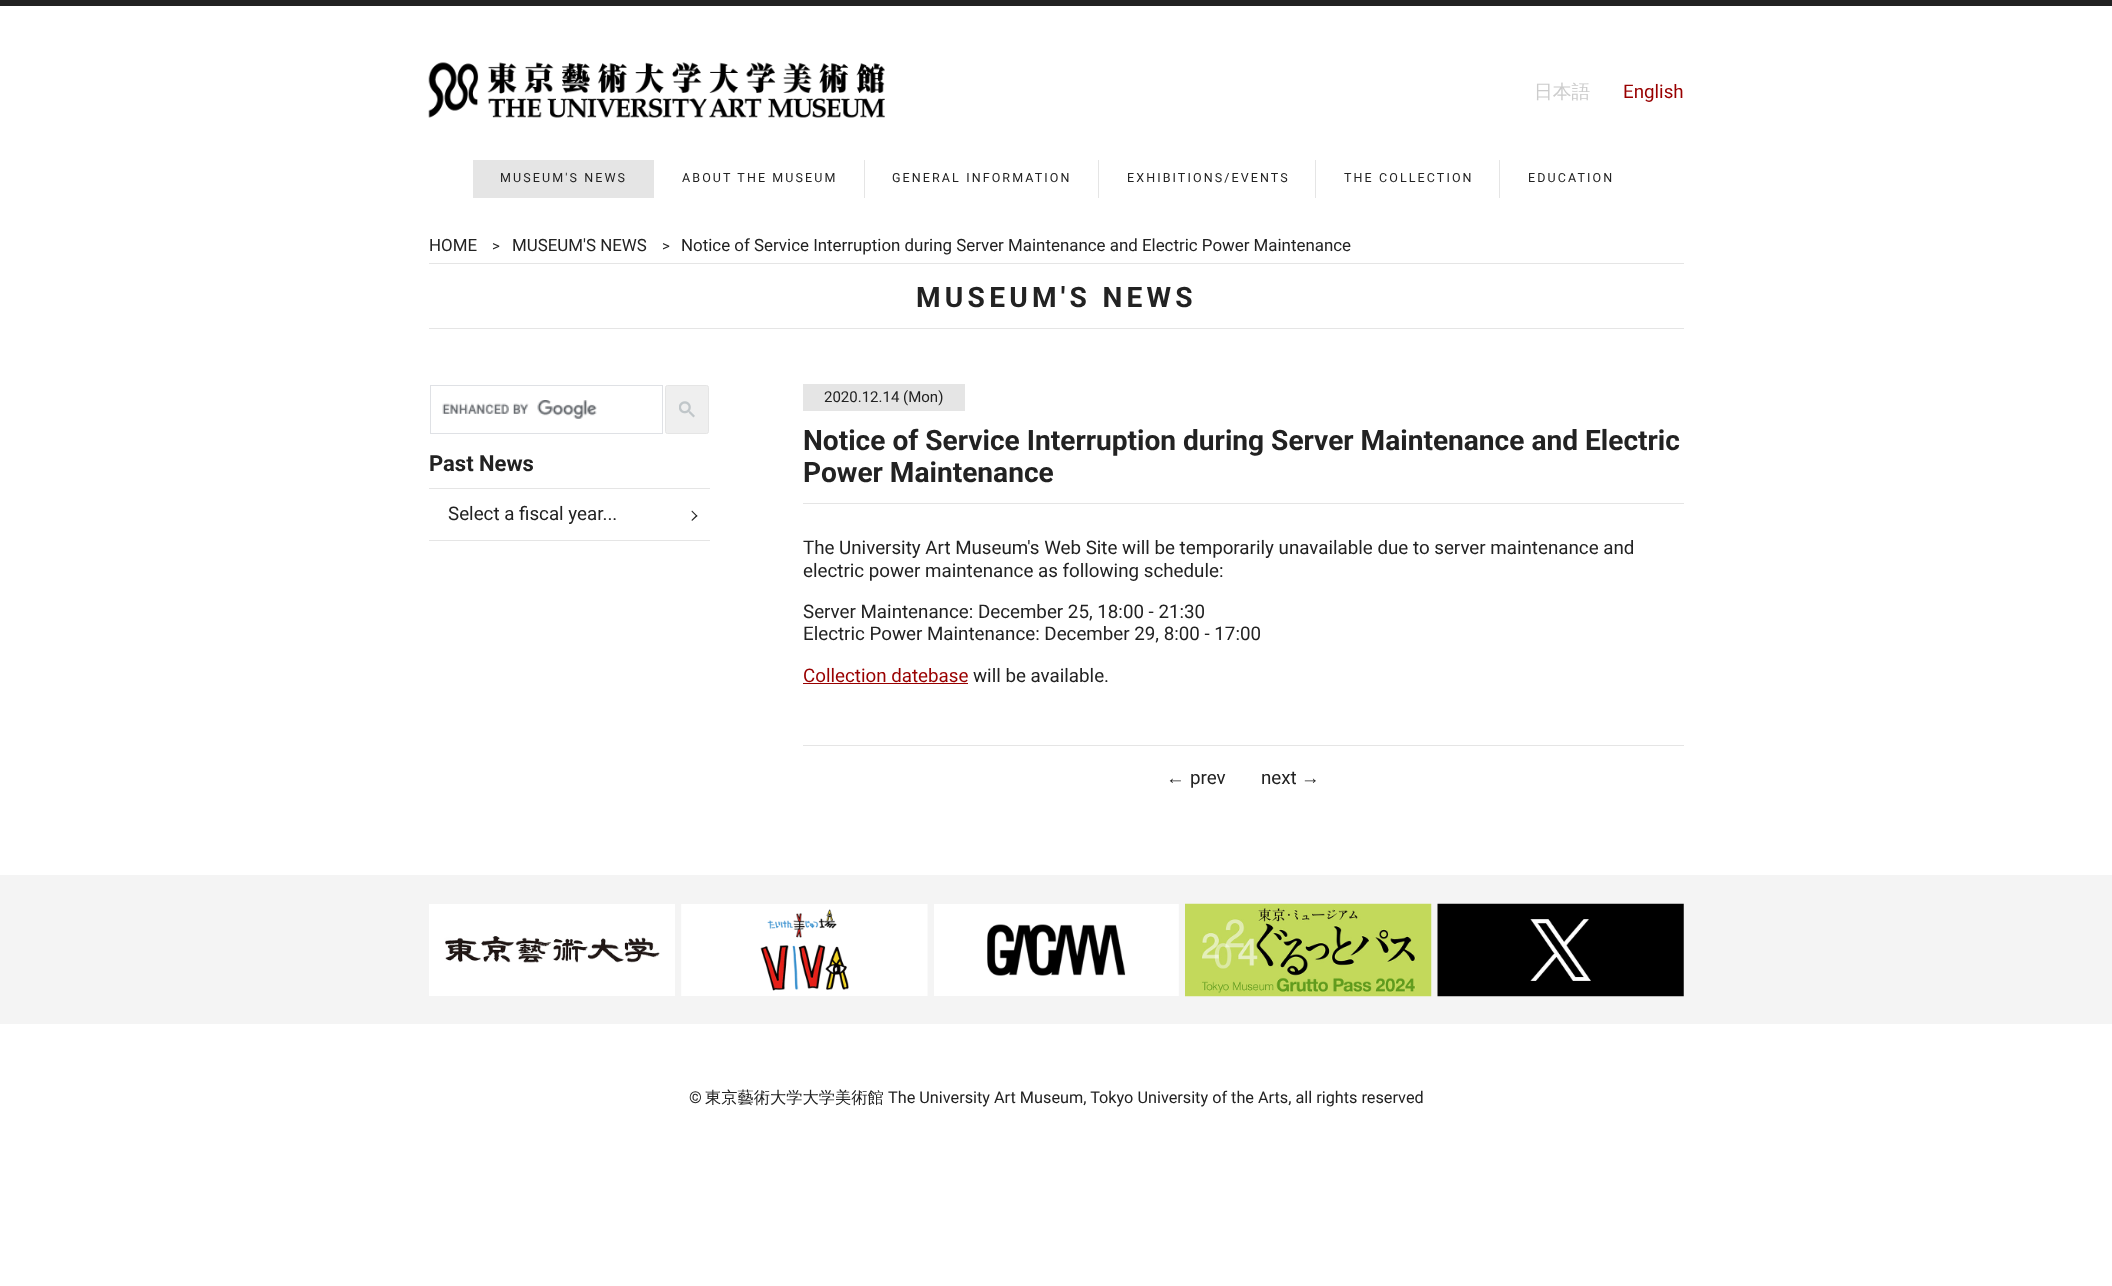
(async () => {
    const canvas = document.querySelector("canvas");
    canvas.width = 2112;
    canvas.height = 1286;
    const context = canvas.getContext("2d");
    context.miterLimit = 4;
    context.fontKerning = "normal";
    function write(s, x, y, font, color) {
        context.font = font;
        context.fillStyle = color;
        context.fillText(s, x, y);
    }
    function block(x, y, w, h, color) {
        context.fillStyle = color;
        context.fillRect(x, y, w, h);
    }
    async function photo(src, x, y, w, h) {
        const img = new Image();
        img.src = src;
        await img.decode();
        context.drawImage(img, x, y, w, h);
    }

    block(0, 0, 2112, 1286, "rgb(255, 255, 255)");
    block(0, 0, 2112, 6, "rgb(34, 34, 34)");
    await photo("media/1.png", 428, 62, 457, 56);
    write("日本語", 1534, 98, "500 18.75px WenQuanYi Zen Hei", "rgb(204, 204, 204)");
    write("English", 1623, 98, "18.75px Roboto", "rgb(153, 0, 0)");
    block(473, 160, 181, 38, "rgb(229, 229, 229)");
    context.letterSpacing = "2.1px";
    write("MUSEUM'S NEWS", 500, 182, "12.5px Roboto", "rgb(34, 34, 34)");
    write("ABOUT THE MUSEUM", 682, 182, "12.5px Roboto", "rgb(34, 34, 34)");
    block(864, 160, 1, 38, "rgb(229, 229, 229)");
    write("GENERAL INFORMATION", 892, 182, "12.5px Roboto", "rgb(34, 34, 34)");
    block(1098, 160, 1, 38, "rgb(229, 229, 229)");
    write("EXHIBITIONS/EVENTS", 1127, 182, "12.5px Roboto", "rgb(34, 34, 34)");
    block(1315, 160, 1, 38, "rgb(229, 229, 229)");
    write("THE COLLECTION", 1344, 182, "12.5px Roboto", "rgb(34, 34, 34)");
    block(1499, 160, 1, 38, "rgb(229, 229, 229)");
    write("EDUCATION", 1528, 182, "12.5px Roboto", "rgb(34, 34, 34)");
    block(429, 263, 1255, 1, "rgb(229, 229, 229)");
    context.letterSpacing = "0px";
    write("HOME", 429, 251, "16.9px Roboto", "rgb(34, 34, 34)");
    write(">", 492, 251, "15px Roboto", "rgb(34, 34, 34)");
    write("MUSEUM'S NEWS", 512, 251, "16.9px Roboto", "rgb(34, 34, 34)");
    write(">", 662, 251, "15px Roboto", "rgb(34, 34, 34)");
    write("Notice of Service Interruption during Server Maintenance and Electric Power Maintenance", 681, 251, "16.9px Roboto", "rgb(34, 34, 34)");
    block(429, 328, 1255, 1, "rgb(229, 229, 229)");
    context.letterSpacing = "4.25px";
    write("MUSEUM'S NEWS", 916, 307, "bold 28.1px Roboto", "rgb(34, 34, 34)");
    context.strokeStyle = "rgb(223, 225, 229)";
    context.strokeRect(430.5, 385.5, 232, 48);
    await photo("media/2.png", 442, 400, 155, 19);
    context.fillStyle = "rgb(239, 239, 239)";
    context.beginPath();
    context.roundRect(665.5, 385.5, 43, 48, 2);
    context.fill();
    context.strokeStyle = "rgb(229, 229, 229)";
    context.stroke();
    await photo("media/3.png", 679, 401, 16, 17);
    block(429, 488, 281, 1, "rgb(229, 229, 229)");
    context.letterSpacing = "0px";
    write("Past News", 429, 471, "bold 22px Roboto", "rgb(34, 34, 34)");
    block(429, 540, 281, 1, "rgb(229, 229, 229)");
    write("Select a fiscal year...", 448, 520, "18.75px Roboto", "rgb(34, 34, 34)");
    context.beginPath();
    context.moveTo(691.5, 511.5);
    context.lineTo(692, 510.5);
    context.lineTo(697.5, 516);
    context.lineTo(696.5, 516.5);
    context.closePath();
    context.fill();
    context.beginPath();
    context.moveTo(691.5, 520);
    context.lineTo(696.5, 515);
    context.lineTo(697.5, 516);
    context.lineTo(692, 521);
    context.closePath();
    context.fill();
    block(803, 384, 162, 27, "rgb(229, 229, 229)");
    write("2020.12.14 (Mon)", 824, 402, "15px Roboto", "rgb(34, 34, 34)");
    block(803, 503, 881, 1, "rgb(229, 229, 229)");
    write("Notice of Service Interruption during Server Maintenance and Electric", 803, 450, "bold 28.1px Roboto", "rgb(34, 34, 34)");
    write("Power Maintenance", 803, 482, "bold 28.1px Roboto", "rgb(34, 34, 34)");
    write("The University Art Museum's Web Site will be temporarily unavailable due to server maintenance and", 803, 554, "18.75px Roboto", "rgb(34, 34, 34)");
    write("electric power maintenance as following schedule:", 803, 577, "18.75px Roboto", "rgb(34, 34, 34)");
    write("Server Maintenance: December 25, 18:00 - 21:30", 803, 618, "18.75px Roboto", "rgb(34, 34, 34)");
    write("Electric Power Maintenance: December 29, 8:00 - 17:00", 803, 640, "18.75px Roboto", "rgb(34, 34, 34)");
    write("Collection datebase", 803, 682, "18.75px Roboto", "rgb(153, 0, 0)");
    block(803, 683, 165, 1, "rgb(153, 0, 0)");
    write("will be available.", 973, 682, "18.75px Roboto", "rgb(34, 34, 34)");
    block(803, 745, 881, 1, "rgb(229, 229, 229)");
    write("←", 1166, 784, "18.75px Liberation Sans", "rgb(34, 34, 34)");
    write("prev", 1190, 784, "18.75px Roboto", "rgb(34, 34, 34)");
    write("next", 1261, 784, "18.75px Roboto", "rgb(34, 34, 34)");
    write("→", 1301, 784, "18.75px Liberation Sans", "rgb(34, 34, 34)");
    block(0, 875, 2112, 149, "rgb(244, 244, 244)");
    await photo("media/4.png", 429, 904, 246, 92);
    await photo("media/5.png", 681, 904, 247, 92);
    await photo("media/6.png", 934, 904, 245, 92);
    await photo("media/7.png", 1185, 903, 247, 94);
    await photo("media/8.png", 1437, 903, 247, 94);
    write("©", 689, 1103, "16.25px Roboto", "rgb(34, 34, 34)");
    write("東京藝術大学大学美術館", 705, 1103, "500 16.25px WenQuanYi Zen Hei", "rgb(34, 34, 34)");
    write("The University Art Museum, Tokyo University of the Arts, all rights reserved", 888, 1103, "16.25px Roboto", "rgb(34, 34, 34)");
})();
